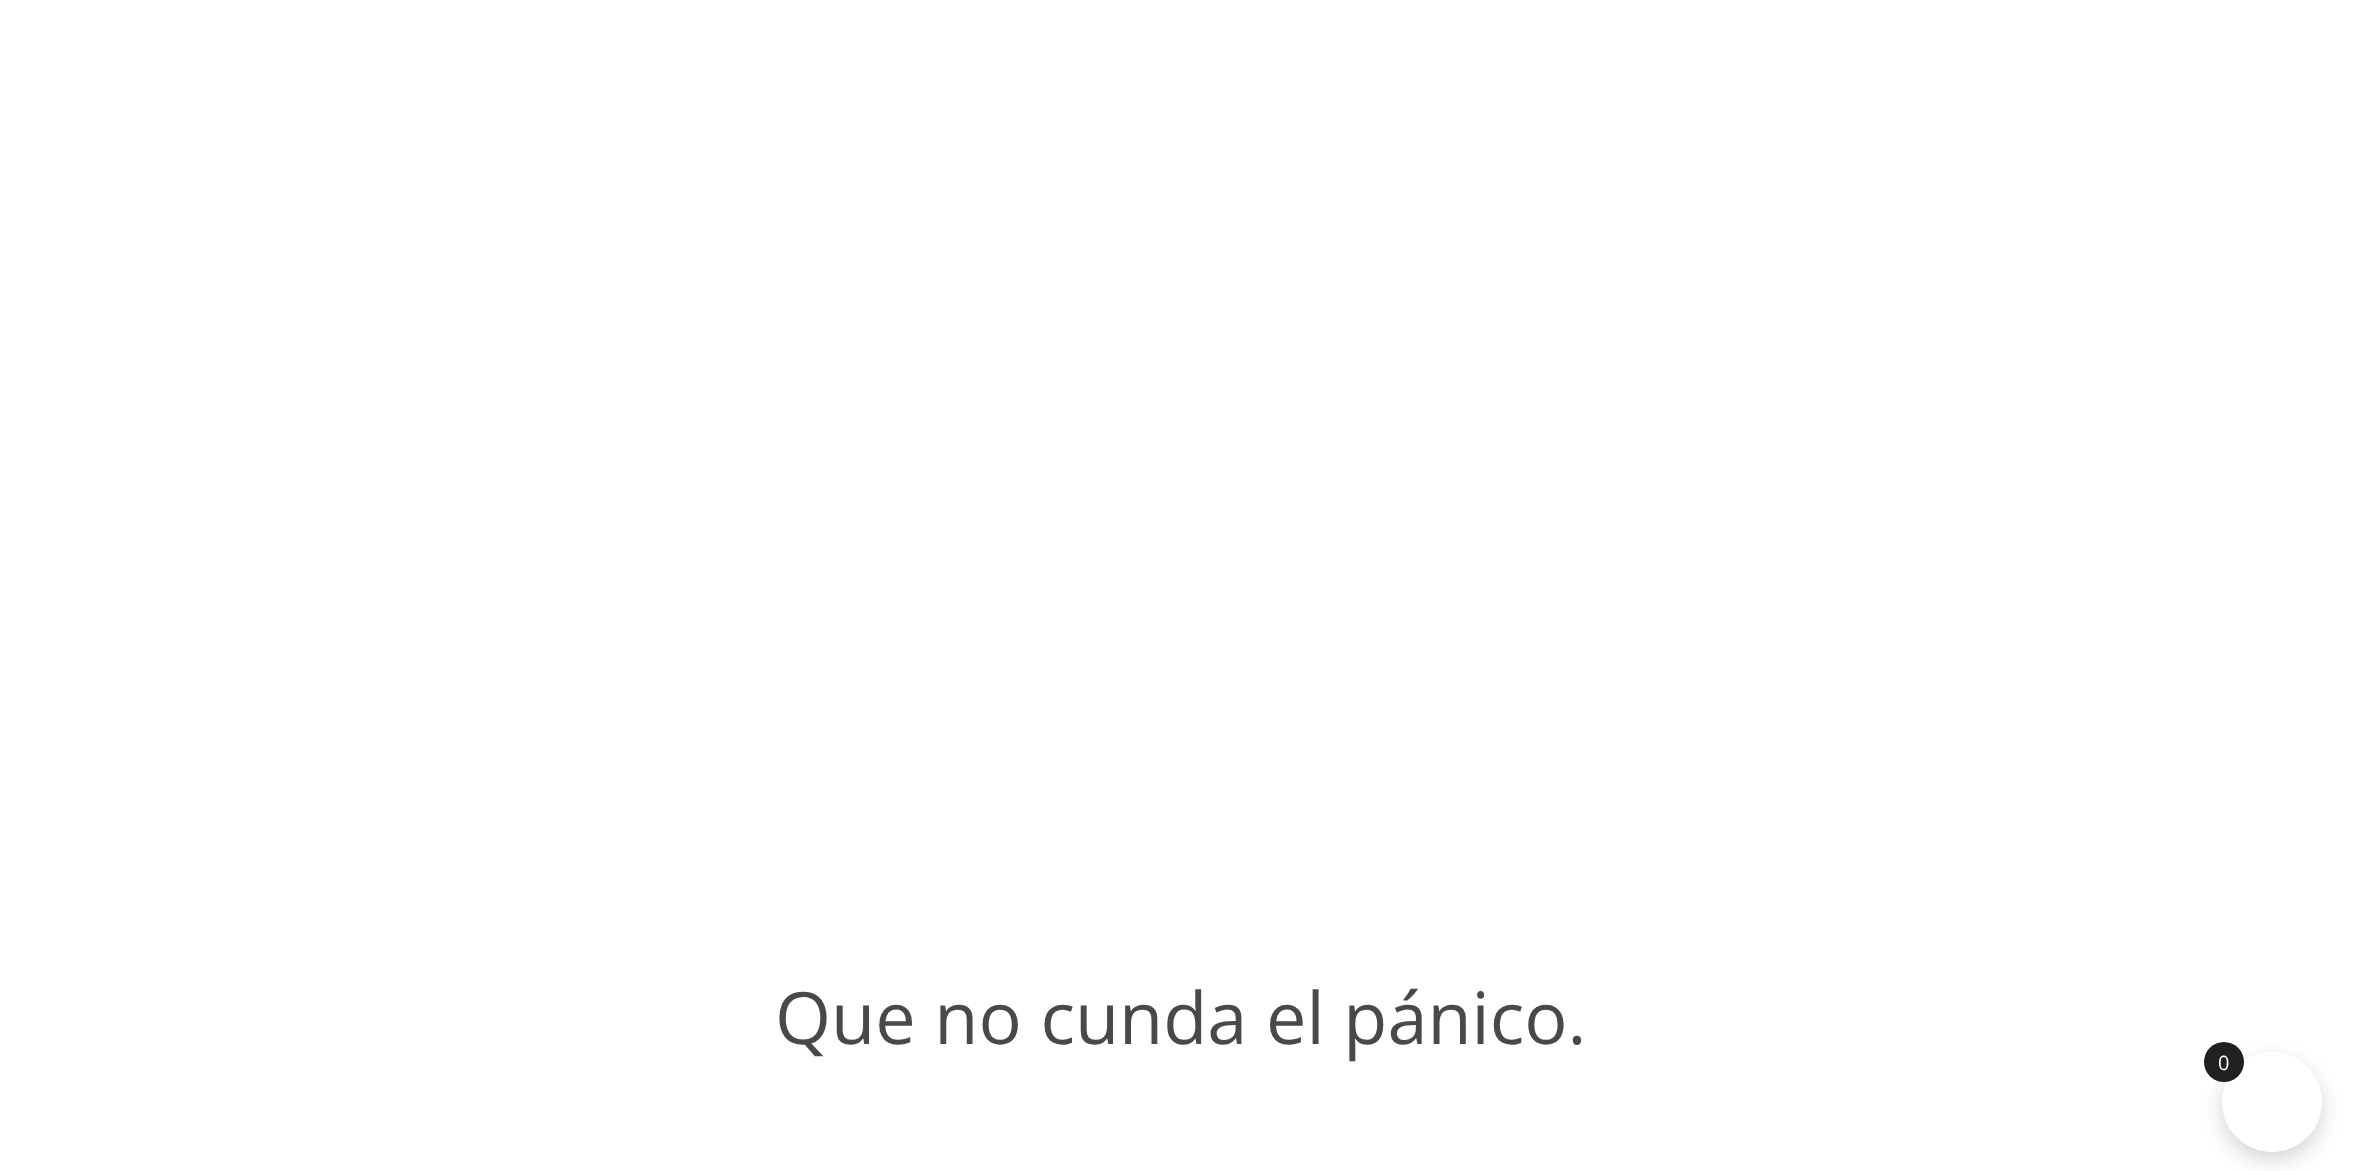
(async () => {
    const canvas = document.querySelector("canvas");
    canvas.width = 2362;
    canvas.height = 1171;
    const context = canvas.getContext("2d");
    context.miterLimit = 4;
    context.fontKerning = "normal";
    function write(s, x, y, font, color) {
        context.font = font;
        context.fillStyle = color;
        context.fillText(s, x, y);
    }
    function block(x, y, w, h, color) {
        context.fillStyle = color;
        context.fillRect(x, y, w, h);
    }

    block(0, 0, 2362, 1171, "rgb(255, 255, 255)");
    write("Que no cunda el pánico.", 775, 1044, "72px Open Sans", "rgb(73, 73, 73)");
    context.fillStyle = "rgba(0, 0, 0, 0.17)";
    context.filter = "blur(10px)";
    context.beginPath();
    context.roundRect(2222, 1060, 100, 100, 50);
    context.fill();
    context.filter = "none";
    context.fillStyle = "rgb(255, 255, 255)";
    context.beginPath();
    context.arc(2272, 1102, 50, 0, Math.PI * 2);
    context.fill();
    context.fillStyle = "rgb(33, 33, 33)";
    context.beginPath();
    context.arc(2224, 1062, 20, 0, Math.PI * 2);
    context.fill();
    write("0", 2218, 1070, "20px Open Sans", "rgb(255, 255, 255)");
})();
